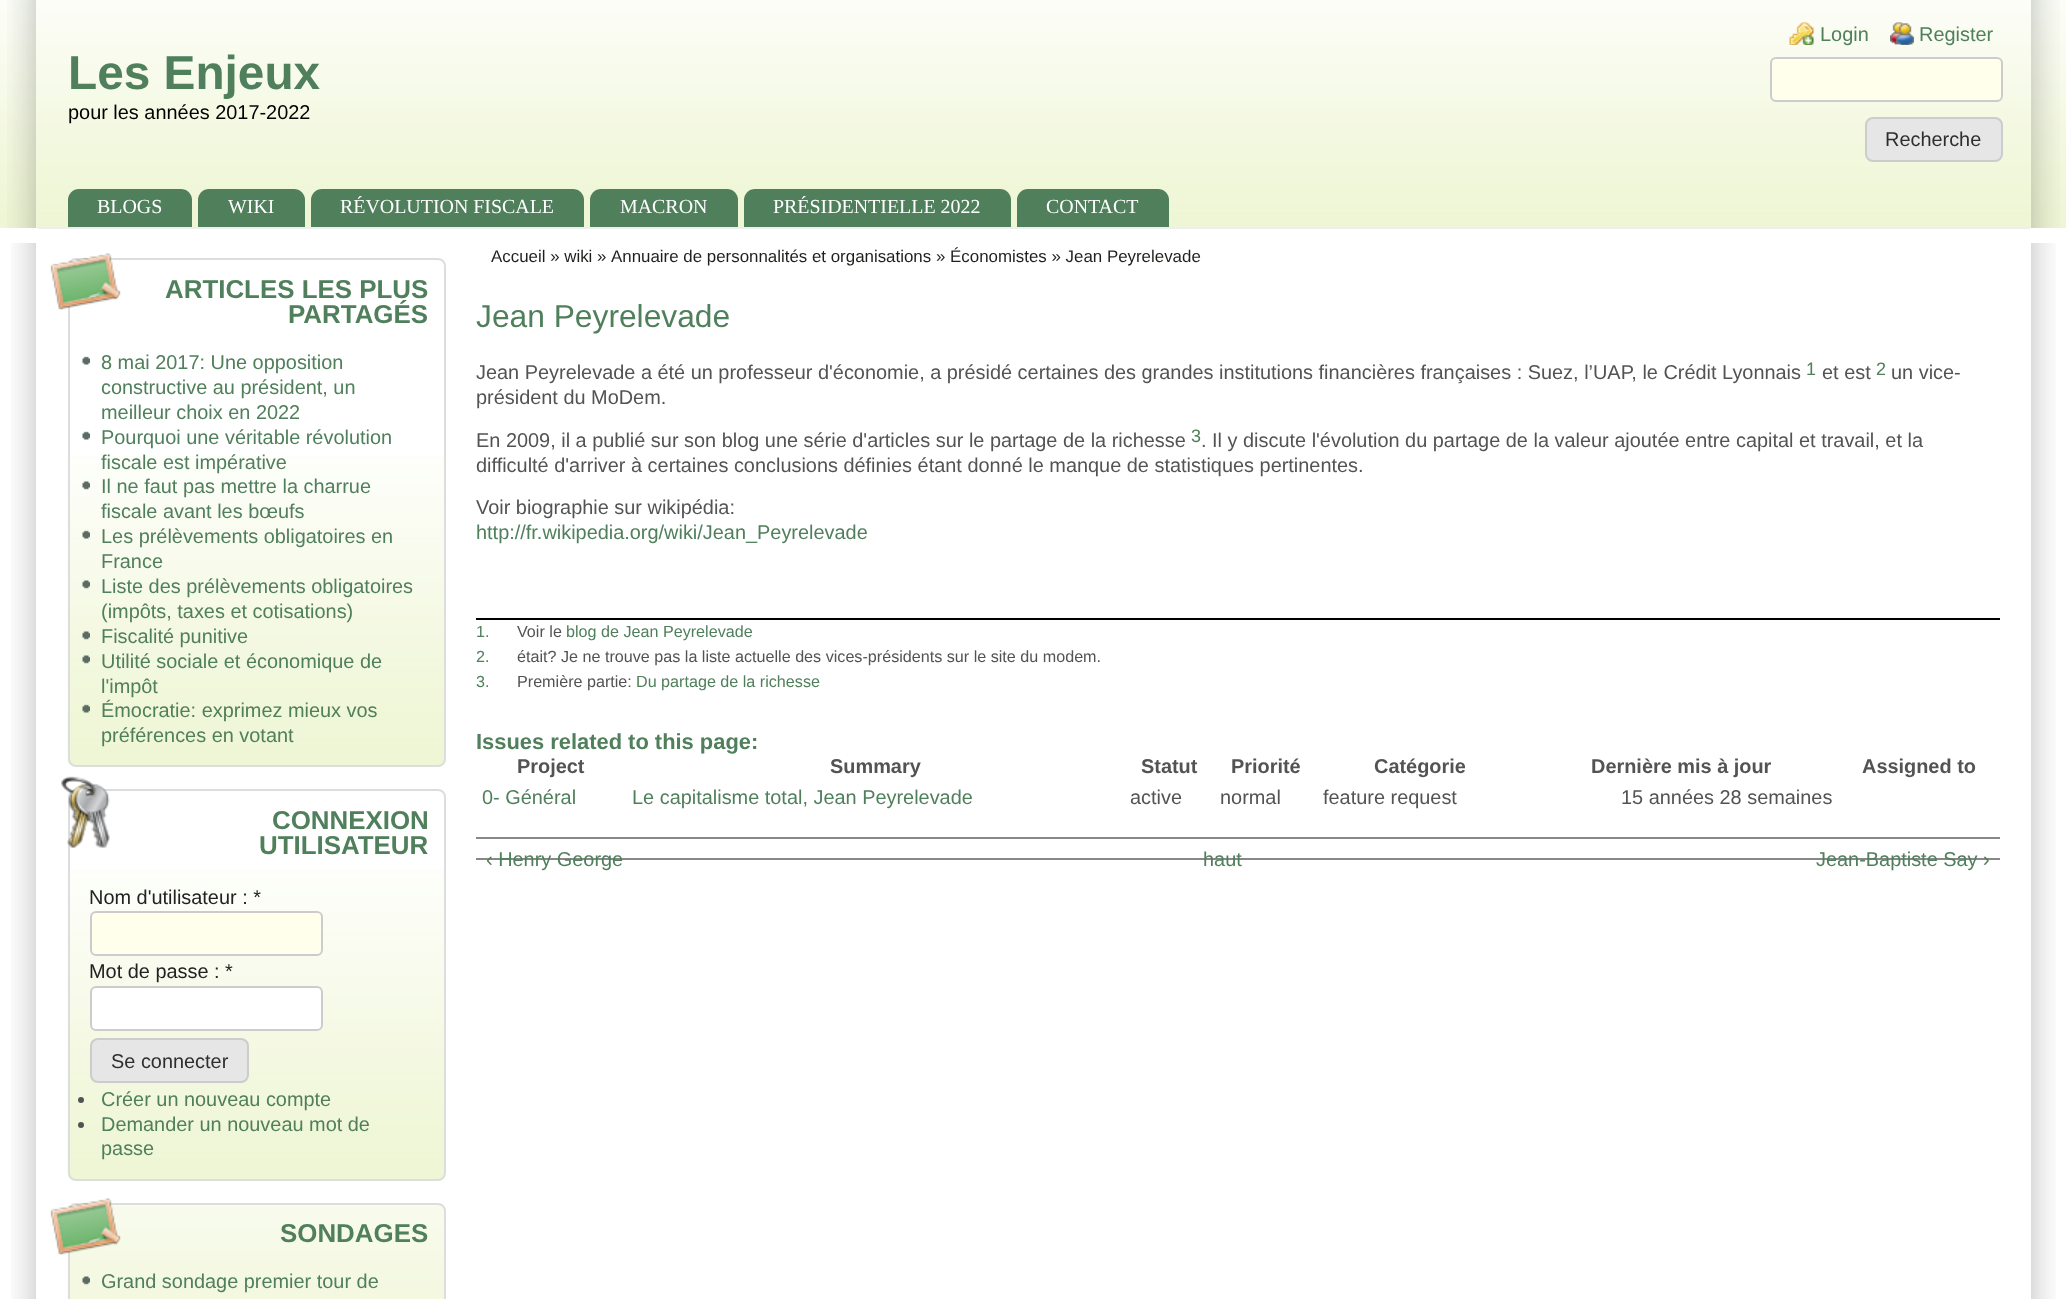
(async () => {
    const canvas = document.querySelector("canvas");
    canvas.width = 2066;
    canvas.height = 1299;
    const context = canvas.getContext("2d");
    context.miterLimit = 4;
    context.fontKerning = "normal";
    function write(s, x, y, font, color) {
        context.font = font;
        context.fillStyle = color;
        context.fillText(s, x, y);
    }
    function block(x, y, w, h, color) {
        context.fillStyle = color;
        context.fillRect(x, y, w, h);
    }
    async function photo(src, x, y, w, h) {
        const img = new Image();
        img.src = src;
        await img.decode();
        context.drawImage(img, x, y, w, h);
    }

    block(0, 0, 2066, 1299, "rgb(255, 255, 255)");
    await photo("media/1.png", 0, 0, 2066, 228);
    await photo("media/2.png", 7, 0, 29, 228);
    await photo("media/3.png", 2031, 0, 29, 228);
    block(38, 227, 1992, 2, "rgb(238, 238, 238)");
    write("Les Enjeux", 68, 89, "bold 47.75px Liberation Sans", "rgb(79, 127, 91)");
    write("pour les années 2017-2022", 68, 119, "19.92px Liberation Sans", "rgb(0, 0, 0)");
    await photo("media/4.png", 1789, 22, 25, 23);
    write("Login", 1820, 41, "19.92px Liberation Sans", "rgb(79, 127, 91)");
    await photo("media/5.png", 1890, 22, 24, 23);
    write("Register", 1919, 41, "19.92px Liberation Sans", "rgb(79, 127, 91)");
    context.fillStyle = "rgb(255, 255, 236)";
    context.beginPath();
    context.roundRect(1771, 58, 231, 43, 5);
    context.fill();
    context.strokeStyle = "rgb(204, 204, 204)";
    context.lineWidth = 2;
    context.stroke();
    context.fillStyle = "rgb(230, 230, 230)";
    context.beginPath();
    context.roundRect(1866, 118, 136, 43, 7);
    context.fill();
    context.stroke();
    write("Recherche", 1885, 146, "19.92px Liberation Sans", "rgb(46, 46, 46)");
    context.fillStyle = "rgb(79, 127, 91)";
    context.beginPath();
    context.roundRect(68, 189, 124, 38, [11, 11, 0, 0]);
    context.fill();
    write("BLOGS", 97, 213, "19.92px Liberation Serif", "rgb(255, 255, 255)");
    context.fillStyle = "rgb(79, 127, 91)";
    context.beginPath();
    context.roundRect(198, 189, 107, 38, [11, 11, 0, 0]);
    context.fill();
    write("WIKI", 228, 213, "19.92px Liberation Serif", "rgb(255, 255, 255)");
    context.fillStyle = "rgb(79, 127, 91)";
    context.beginPath();
    context.roundRect(311, 189, 273, 38, [11, 11, 0, 0]);
    context.fill();
    write("RÉVOLUTION FISCALE", 340, 213, "19.92px Liberation Serif", "rgb(255, 255, 255)");
    context.fillStyle = "rgb(79, 127, 91)";
    context.beginPath();
    context.roundRect(590, 189, 148, 38, [11, 11, 0, 0]);
    context.fill();
    write("MACRON", 620, 213, "19.92px Liberation Serif", "rgb(255, 255, 255)");
    context.fillStyle = "rgb(79, 127, 91)";
    context.beginPath();
    context.roundRect(744, 189, 267, 38, [11, 11, 0, 0]);
    context.fill();
    write("PRÉSIDENTIELLE 2022", 773, 213, "19.92px Liberation Serif", "rgb(255, 255, 255)");
    context.fillStyle = "rgb(79, 127, 91)";
    context.beginPath();
    context.roundRect(1017, 189, 152, 38, [11, 11, 0, 0]);
    context.fill();
    write("CONTACT", 1046, 213, "19.92px Liberation Serif", "rgb(255, 255, 255)");
    await photo("media/6.png", 11, 243, 25, 1056);
    await photo("media/7.png", 2031, 243, 25, 1056);
    await photo("media/8.png", 67, 456, 379, 309);
    context.beginPath();
    context.roundRect(69, 259, 376, 507, 7);
    context.strokeStyle = "rgb(221, 221, 221)";
    context.stroke();
    await photo("media/9.png", 50, 253, 71, 57);
    write("ARTICLES LES PLUS", 165, 298, "bold 25.9px Liberation Sans", "rgb(79, 127, 91)");
    write("PARTAGÉS", 288, 323, "bold 25.9px Liberation Sans", "rgb(79, 127, 91)");
    await photo("media/10.png", 82, 356, 8, 9);
    write("8 mai 2017: Une opposition", 101, 369, "19.92px Liberation Sans", "rgb(79, 127, 91)");
    write("constructive au président, un", 101, 394, "19.92px Liberation Sans", "rgb(79, 127, 91)");
    write("meilleur choix en 2022", 101, 419, "19.92px Liberation Sans", "rgb(79, 127, 91)");
    await photo("media/10.png", 82, 431, 8, 9);
    write("Pourquoi une véritable révolution", 101, 444, "19.92px Liberation Sans", "rgb(79, 127, 91)");
    write("fiscale est impérative", 101, 469, "19.92px Liberation Sans", "rgb(79, 127, 91)");
    await photo("media/11.png", 82, 481, 8, 9);
    write("Il ne faut pas mettre la charrue", 101, 493, "19.92px Liberation Sans", "rgb(79, 127, 91)");
    write("fiscale avant les bœufs", 101, 518, "19.92px Liberation Sans", "rgb(79, 127, 91)");
    await photo("media/12.png", 82, 530, 8, 9);
    write("Les prélèvements obligatoires en", 101, 543, "19.92px Liberation Sans", "rgb(79, 127, 91)");
    write("France", 101, 568, "19.92px Liberation Sans", "rgb(79, 127, 91)");
    await photo("media/13.png", 82, 580, 8, 9);
    write("Liste des prélèvements obligatoires", 101, 593, "19.92px Liberation Sans", "rgb(79, 127, 91)");
    write("(impôts, taxes et cotisations)", 101, 618, "19.92px Liberation Sans", "rgb(79, 127, 91)");
    await photo("media/14.png", 82, 631, 8, 9);
    write("Fiscalité punitive", 101, 643, "19.92px Liberation Sans", "rgb(79, 127, 91)");
    await photo("media/15.png", 82, 655, 8, 9);
    write("Utilité sociale et économique de", 101, 668, "19.92px Liberation Sans", "rgb(79, 127, 91)");
    write("l'impôt", 101, 693, "19.92px Liberation Sans", "rgb(79, 127, 91)");
    await photo("media/16.png", 82, 704, 8, 9);
    write("Émocratie: exprimez mieux vos", 101, 717, "19.92px Liberation Sans", "rgb(79, 127, 91)");
    write("préférences en votant", 101, 742, "19.92px Liberation Sans", "rgb(79, 127, 91)");
    await photo("media/17.png", 67, 870, 379, 309);
    context.beginPath();
    context.roundRect(69, 790, 376, 390, 7);
    context.stroke();
    await photo("media/18.png", 61, 776, 49, 72);
    write("CONNEXION", 272, 829, "bold 25.9px Liberation Sans", "rgb(79, 127, 91)");
    write("UTILISATEUR", 259, 854, "bold 25.9px Liberation Sans", "rgb(79, 127, 91)");
    write("Nom d'utilisateur : *", 89, 904, "19.92px Liberation Sans", "rgb(34, 34, 34)");
    context.fillStyle = "rgb(255, 255, 236)";
    context.beginPath();
    context.roundRect(91, 912, 231, 43, 5);
    context.fill();
    context.strokeStyle = "rgb(204, 204, 204)";
    context.stroke();
    write("Mot de passe : *", 89, 978, "19.92px Liberation Sans", "rgb(34, 34, 34)");
    context.fillStyle = "rgb(255, 255, 255)";
    context.beginPath();
    context.roundRect(91, 987, 231, 43, 5);
    context.fill();
    context.stroke();
    context.fillStyle = "rgb(230, 230, 230)";
    context.beginPath();
    context.roundRect(91, 1039, 157, 43, 7);
    context.fill();
    context.stroke();
    write("Se connecter", 111, 1068, "19.92px Liberation Sans", "rgb(46, 46, 46)");
    context.fillStyle = "rgb(83, 83, 83)";
    context.beginPath();
    context.arc(81, 1100, 3, 0, Math.PI * 2);
    context.fill();
    write("Créer un nouveau compte", 101, 1106, "19.92px Liberation Sans", "rgb(79, 127, 91)");
    context.fillStyle = "rgb(83, 83, 83)";
    context.beginPath();
    context.arc(81, 1125, 3, 0, Math.PI * 2);
    context.fill();
    write("Demander un nouveau mot de", 101, 1131, "19.92px Liberation Sans", "rgb(79, 127, 91)");
    write("passe", 101, 1155, "19.92px Liberation Sans", "rgb(79, 127, 91)");
    await photo("media/19.png", 67, 1203, 379, 96);
    context.beginPath();
    context.roundRect(69, 1204, 376, 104, 7);
    context.strokeStyle = "rgb(221, 221, 221)";
    context.stroke();
    await photo("media/20.png", 50, 1198, 71, 57);
    write("SONDAGES", 280, 1242, "bold 25.9px Liberation Sans", "rgb(79, 127, 91)");
    await photo("media/14.png", 82, 1276, 8, 9);
    write("Grand sondage premier tour de", 101, 1288, "19.92px Liberation Sans", "rgb(79, 127, 91)");
    write("Accueil » wiki", 491, 262, "16.9px Liberation Sans", "rgb(30, 32, 27)");
    write("»", 597, 262, "16.9px Liberation Sans", "rgb(30, 32, 27)");
    write("Annuaire de personnalités et organisations", 611, 262, "16.9px Liberation Sans", "rgb(30, 32, 27)");
    write("» Économistes » Jean Peyrelevade", 936, 262, "16.9px Liberation Sans", "rgb(30, 32, 27)");
    write("Jean Peyrelevade", 476, 327, "31.75px Liberation Sans", "rgb(79, 127, 91)");
    write("Jean Peyrelevade a été un professeur d'économie, a présidé certaines des grandes institutions financières françaises : Suez, l’UAP, le Crédit Lyonnais", 476, 379, "19.92px Liberation Sans", "rgb(83, 83, 83)");
    write("1", 1806, 375, "18px Liberation Sans", "rgb(79, 127, 91)");
    write("et est", 1822, 379, "19.92px Liberation Sans", "rgb(83, 83, 83)");
    write("2", 1876, 375, "18px Liberation Sans", "rgb(79, 127, 91)");
    write("un vice-", 1891, 379, "19.92px Liberation Sans", "rgb(83, 83, 83)");
    write("président du MoDem.", 476, 404, "19.92px Liberation Sans", "rgb(83, 83, 83)");
    write("En 2009, il a publié sur son blog une série d'articles sur le partage de la richesse", 476, 447, "19.92px Liberation Sans", "rgb(83, 83, 83)");
    write("3", 1191, 442, "18px Liberation Sans", "rgb(79, 127, 91)");
    write(". Il y discute l'évolution du partage de la valeur ajoutée entre capital et travail, et la", 1201, 447, "19.92px Liberation Sans", "rgb(83, 83, 83)");
    write("difficulté d'arriver à certaines conclusions définies étant donné le manque de statistiques pertinentes.", 476, 472, "19.92px Liberation Sans", "rgb(83, 83, 83)");
    write("Voir biographie sur wikipédia:", 476, 514, "19.92px Liberation Sans", "rgb(83, 83, 83)");
    write("http://fr.wikipedia.org/wiki/Jean_Peyrelevade", 476, 539, "19.92px Liberation Sans", "rgb(79, 127, 91)");
    block(476, 618, 1524, 2, "rgb(0, 0, 0)");
    write("1.", 476, 637, "16.15px Liberation Sans", "rgb(79, 127, 91)");
    write("Voir le", 517, 637, "16.15px Liberation Sans", "rgb(83, 83, 83)");
    write("blog de Jean Peyrelevade", 566, 637, "16.15px Liberation Sans", "rgb(79, 127, 91)");
    write("2.", 476, 662, "16.15px Liberation Sans", "rgb(79, 127, 91)");
    write("était? Je ne trouve pas la liste actuelle des vices-présidents sur le site du modem.", 517, 662, "16.15px Liberation Sans", "rgb(83, 83, 83)");
    write("3.", 476, 687, "16.15px Liberation Sans", "rgb(79, 127, 91)");
    write("Première partie:", 517, 687, "16.15px Liberation Sans", "rgb(83, 83, 83)");
    write("Du partage de la richesse", 636, 687, "16.15px Liberation Sans", "rgb(79, 127, 91)");
    write("Issues related to this page:", 476, 749, "bold 21.9px Liberation Sans", "rgb(79, 127, 91)");
    write("Project", 517, 773, "bold 19.92px Liberation Sans", "rgb(83, 83, 83)");
    write("Summary", 830, 773, "bold 19.92px Liberation Sans", "rgb(83, 83, 83)");
    write("Statut", 1141, 773, "bold 19.92px Liberation Sans", "rgb(83, 83, 83)");
    write("Priorité", 1231, 773, "bold 19.92px Liberation Sans", "rgb(83, 83, 83)");
    write("Catégorie", 1374, 773, "bold 19.92px Liberation Sans", "rgb(83, 83, 83)");
    write("Dernière mis à jour", 1591, 773, "bold 19.92px Liberation Sans", "rgb(83, 83, 83)");
    write("Assigned to", 1862, 773, "bold 19.92px Liberation Sans", "rgb(83, 83, 83)");
    write("0- Général", 482, 804, "19.92px Liberation Sans", "rgb(79, 127, 91)");
    write("Le capitalisme total, Jean Peyrelevade", 632, 804, "19.92px Liberation Sans", "rgb(79, 127, 91)");
    write("active", 1130, 804, "19.92px Liberation Sans", "rgb(83, 83, 83)");
    write("normal", 1220, 804, "19.92px Liberation Sans", "rgb(83, 83, 83)");
    write("feature request", 1323, 804, "19.92px Liberation Sans", "rgb(83, 83, 83)");
    write("15 années 28 semaines", 1621, 804, "19.92px Liberation Sans", "rgb(83, 83, 83)");
    block(476, 837, 1524, 2, "rgb(136, 136, 136)");
    block(476, 858, 1524, 2, "rgb(136, 136, 136)");
    write("‹ Henry George", 486, 866, "19.92px Liberation Sans", "rgb(79, 127, 91)");
    write("haut", 1203, 866, "19.92px Liberation Sans", "rgb(79, 127, 91)");
    write("Jean-Baptiste Say ›", 1816, 866, "19.92px Liberation Sans", "rgb(79, 127, 91)");
})();
